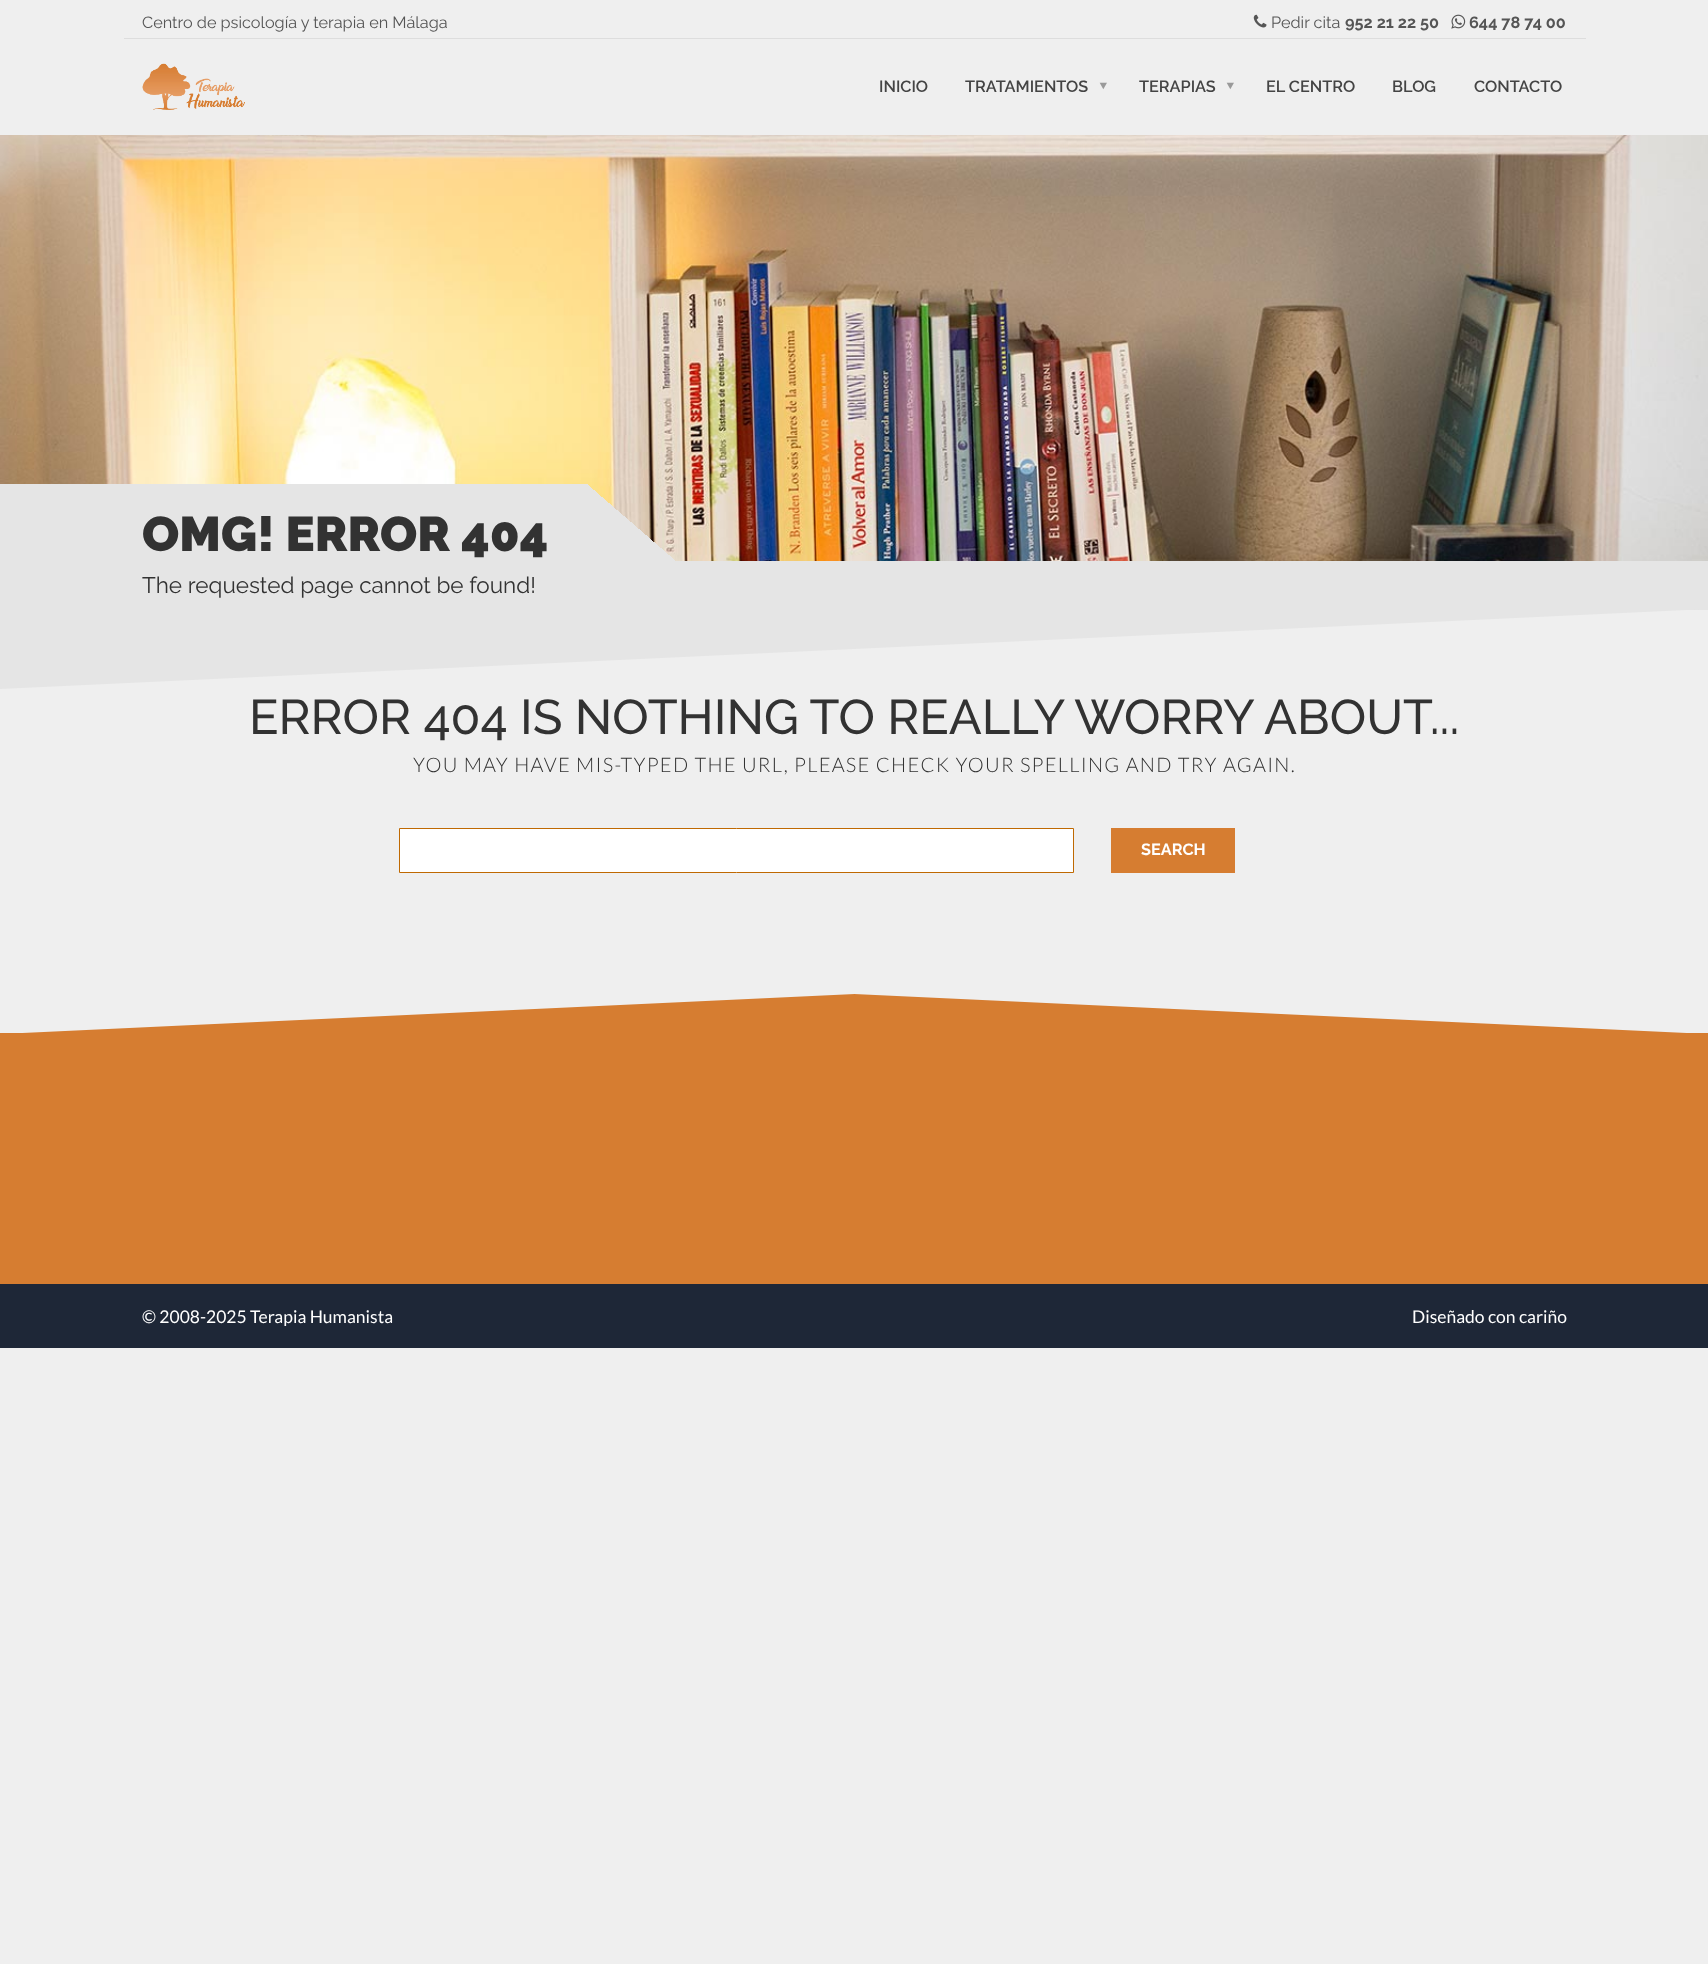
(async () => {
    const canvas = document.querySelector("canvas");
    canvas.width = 1708;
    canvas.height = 1964;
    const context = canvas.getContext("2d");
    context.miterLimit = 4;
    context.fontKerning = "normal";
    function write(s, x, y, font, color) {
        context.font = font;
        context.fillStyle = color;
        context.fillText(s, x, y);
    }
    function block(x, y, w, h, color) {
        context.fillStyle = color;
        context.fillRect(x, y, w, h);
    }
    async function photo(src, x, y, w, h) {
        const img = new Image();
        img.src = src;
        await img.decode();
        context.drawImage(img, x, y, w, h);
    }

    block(0, 0, 1708, 1964, "rgb(239, 239, 239)");
    block(124, 38, 1462, 1, "rgb(221, 221, 221)");
    write("Centro de psicología y terapia en Málaga", 142, 28, "16.25px Raleway", "rgb(85, 85, 85)");
    await photo("media/1.png", 1253, 14, 14, 14);
    write("Pedir cita", 1271, 28, "16.25px Raleway", "rgb(85, 85, 85)");
    write("952 21 22 50", 1345, 28, "bold 16.25px Raleway", "rgb(85, 85, 85)");
    await photo("media/2.png", 1451, 14, 15, 15);
    write("644 78 74 00", 1469, 28, "bold 16.25px Raleway", "rgb(85, 85, 85)");
    await photo("media/3.png", 142, 63, 103, 47);
    write("INICIO", 879, 92, "600 16.25px Raleway", "rgb(68, 68, 68)");
    write("TRATAMIENTOS", 965, 92, "600 16.25px Raleway", "rgb(68, 68, 68)");
    context.font = "25px Noto Sans";
    context.fillStyle = "rgb(154, 154, 154)";
    context.save();
    context.translate(1094, 81);
    context.rotate(90 * Math.PI / 180);
    context.fillText("‣", 0, 0);
    context.restore();
    write("TERAPIAS", 1139, 92, "600 16.25px Raleway", "rgb(68, 68, 68)");
    context.font = "25px Noto Sans";
    context.fillStyle = "rgb(154, 154, 154)";
    context.save();
    context.translate(1221, 81);
    context.rotate(90 * Math.PI / 180);
    context.fillText("‣", 0, 0);
    context.restore();
    write("EL CENTRO", 1266, 92, "600 16.25px Raleway", "rgb(68, 68, 68)");
    write("BLOG", 1392, 92, "600 16.25px Raleway", "rgb(68, 68, 68)");
    write("CONTACTO", 1474, 92, "600 16.25px Raleway", "rgb(68, 68, 68)");
    await photo("media/4.png", 0, 135, 1708, 426);
    block(256, 484, 330, 77, "rgb(229, 229, 229)");
    write("OMG! ERROR 404", 142, 551, "900 48.75px Raleway", "rgb(50, 50, 50)");
    block(0, 561, 1708, 49, "rgb(229, 229, 229)");
    write("The requested page cannot be found!", 142, 593, "22.5px Raleway", "rgb(50, 50, 50)");
    context.fillStyle = "rgb(229, 229, 229)";
    context.beginPath();
    context.moveTo(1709, 609);
    context.lineTo(0, 609);
    context.lineTo(0, 689);
    context.closePath();
    context.fill();
    write("ERROR 404 IS NOTHING TO REALLY WORRY ABOUT...", 249, 734, "500 48.75px Raleway", "rgb(50, 50, 50)");
    context.letterSpacing = "1.25px";
    write("YOU MAY HAVE MIS-TYPED THE URL, PLEASE CHECK YOUR SPELLING AND TRY AGAIN.", 413, 772, "300 20px Lato", "rgb(50, 50, 50)");
    context.fillStyle = "rgb(255, 255, 255)";
    context.beginPath();
    context.rect(399.5, 828.5, 674, 44);
    context.fill();
    context.strokeStyle = "rgb(191, 105, 2)";
    context.stroke();
    block(1111, 828, 124, 45, "rgb(214, 125, 49)");
    context.letterSpacing = "0px";
    write("SEARCH", 1141, 855, "bold 16.25px Raleway", "rgb(255, 255, 255)");
    block(0, 1033, 1708, 251, "rgb(214, 125, 49)");
    context.beginPath();
    context.moveTo(854, 1034);
    context.lineTo(854, 994);
    context.lineTo(1708, 1034);
    context.closePath();
    context.fill();
    context.beginPath();
    context.moveTo(855, 1034);
    context.lineTo(855, 994);
    context.lineTo(1, 1034);
    context.closePath();
    context.fill();
    block(0, 1284, 1708, 64, "rgb(30, 39, 55)");
    write("© 2008-2025 Terapia Humanista", 142, 1323, "17.5px Lato", "rgb(255, 255, 255)");
    write("Diseñado con cariño", 1412, 1323, "17.5px Lato", "rgb(255, 255, 255)");
})();
